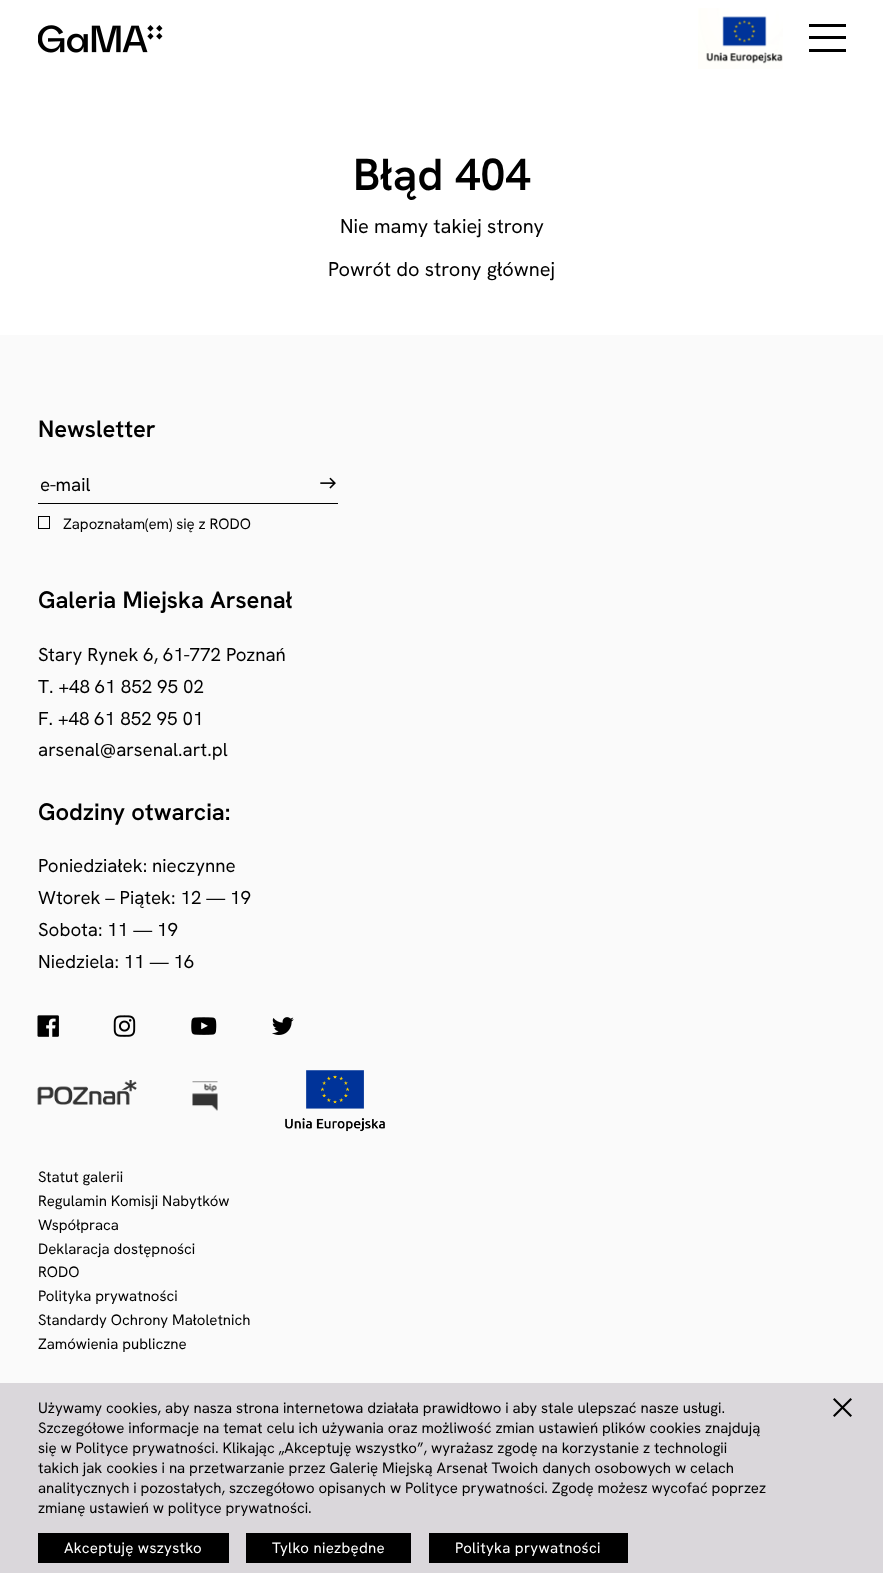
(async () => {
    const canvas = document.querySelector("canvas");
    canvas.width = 883;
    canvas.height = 1584;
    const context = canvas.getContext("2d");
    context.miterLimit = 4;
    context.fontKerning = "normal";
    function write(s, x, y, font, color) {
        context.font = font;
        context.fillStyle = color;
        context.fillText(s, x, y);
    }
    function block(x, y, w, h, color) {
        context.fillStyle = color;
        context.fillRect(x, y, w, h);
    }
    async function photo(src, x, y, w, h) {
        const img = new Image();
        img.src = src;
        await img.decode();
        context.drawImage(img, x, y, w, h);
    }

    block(0, 0, 883, 1584, "rgb(255, 255, 255)");
    await photo("media/1.png", 38, 25, 125, 28);
    await photo("media/2.png", 698, 8, 85, 61);
    block(809, 36, 37, 3, "rgb(0, 0, 0)");
    block(809, 24, 37, 3, "rgb(0, 0, 0)");
    block(809, 49, 37, 3, "rgb(0, 0, 0)");
    write("Błąd 404", 353, 190, "600 45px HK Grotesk", "rgb(0, 0, 0)");
    write("Nie mamy takiej strony", 340, 233, "20px HK Grotesk", "rgb(0, 0, 0)");
    write("Powrót do strony głównej", 328, 276, "20px HK Grotesk", "rgb(0, 0, 0)");
    block(0, 335, 883, 1048, "rgb(250, 250, 250)");
    write("Newsletter", 38, 437, "600 23.75px HK Grotesk", "rgb(0, 0, 0)");
    block(38, 503, 300, 1, "rgb(0, 0, 0)");
    write("e-mail", 40, 491, "18.75px HK Grotesk", "rgb(0, 0, 0)");
    await photo("media/3.png", 320, 477, 16, 12);
    context.strokeStyle = "rgb(0, 0, 0)";
    context.strokeRect(38.5, 516.5, 11, 12);
    write("Zapoznałam(em) się z RODO", 63, 529, "15px HK Grotesk", "rgb(0, 0, 0)");
    write("Galeria Miejska Arsenał", 38, 608, "600 23.75px HK Grotesk", "rgb(0, 0, 0)");
    write("Stary Rynek 6, 61-772 Poznań", 38, 661, "18.75px HK Grotesk", "rgb(0, 0, 0)");
    write("T. +48 61 852 95 02", 38, 693, "18.75px HK Grotesk", "rgb(0, 0, 0)");
    write("F. +48 61 852 95 01", 38, 725, "18.75px HK Grotesk", "rgb(0, 0, 0)");
    write("arsenal@arsenal.art.pl", 38, 756, "18.75px HK Grotesk", "rgb(0, 0, 0)");
    write("Godziny otwarcia:", 38, 820, "600 23.75px HK Grotesk", "rgb(0, 0, 0)");
    write("Poniedziałek: nieczynne", 38, 872, "18.75px HK Grotesk", "rgb(0, 0, 0)");
    write("Wtorek – Piątek: 12 — 19", 38, 904, "18.75px HK Grotesk", "rgb(0, 0, 0)");
    write("Sobota: 11 — 19", 38, 936, "18.75px HK Grotesk", "rgb(0, 0, 0)");
    write("Niedziela: 11 — 16", 38, 968, "18.75px HK Grotesk", "rgb(0, 0, 0)");
    await photo("media/4.png", 37, 1015, 22, 22);
    await photo("media/5.png", 113, 1015, 23, 22);
    await photo("media/6.png", 191, 1017, 26, 18);
    await photo("media/7.png", 272, 1017, 22, 18);
    await photo("media/8.png", 37, 1080, 100, 25);
    await photo("media/9.png", 192, 1081, 26, 30);
    await photo("media/10.png", 285, 1070, 100, 62);
    write("Statut galerii", 38, 1182, "15px HK Grotesk", "rgb(0, 0, 0)");
    write("Regulamin Komisji Nabytków", 38, 1206, "15px HK Grotesk", "rgb(0, 0, 0)");
    write("Współpraca", 38, 1230, "15px HK Grotesk", "rgb(0, 0, 0)");
    write("Deklaracja dostępności", 38, 1254, "15px HK Grotesk", "rgb(0, 0, 0)");
    write("RODO", 38, 1277, "15px HK Grotesk", "rgb(0, 0, 0)");
    write("Polityka prywatności", 38, 1301, "15px HK Grotesk", "rgb(0, 0, 0)");
    write("Standardy Ochrony Małoletnich", 38, 1325, "15px HK Grotesk", "rgb(0, 0, 0)");
    write("Zamówienia publiczne", 38, 1349, "15px HK Grotesk", "rgb(0, 0, 0)");
    block(0, 1383, 883, 190, "rgb(218, 215, 219)");
    write("Używamy cookies, aby nasza strona internetowa działała prawidłowo i aby stale ulepszać nasze usługi.", 38, 1413, "15px HK Grotesk", "rgb(0, 0, 0)");
    write("Szczegółowe informacje na temat celu ich używania oraz możliwość zmian ustawień plików cookies znajdują", 38, 1433, "15px HK Grotesk", "rgb(0, 0, 0)");
    write("się w Polityce prywatności. Klikając „Akceptuję wszystko”, wyrażasz zgodę na korzystanie z technologii", 38, 1453, "15px HK Grotesk", "rgb(0, 0, 0)");
    write("takich jak cookies i na przetwarzanie przez Galerię Miejską Arsenał Twoich danych osobowych w celach", 38, 1473, "15px HK Grotesk", "rgb(0, 0, 0)");
    write("analitycznych i pozostałych, szczegółowo opisanych w Polityce prywatności. Zgodę możesz wycofać poprzez", 38, 1493, "15px HK Grotesk", "rgb(0, 0, 0)");
    write("zmianę ustawień w polityce prywatności.", 38, 1513, "15px HK Grotesk", "rgb(0, 0, 0)");
    context.beginPath();
    context.moveTo(850.5, 1398);
    context.lineTo(852, 1399.5);
    context.lineTo(834.5, 1417);
    context.lineTo(833, 1415.5);
    context.closePath();
    context.fill();
    context.beginPath();
    context.moveTo(833, 1399.5);
    context.lineTo(834.5, 1398);
    context.lineTo(852, 1415.5);
    context.lineTo(850.5, 1417);
    context.closePath();
    context.fill();
    block(38, 1533, 191, 30, "rgb(0, 0, 0)");
    context.letterSpacing = "0.3px";
    write("Akceptuję wszystko", 64, 1553, "15px HK Grotesk", "rgb(255, 255, 255)");
    block(246, 1533, 165, 30, "rgb(0, 0, 0)");
    write("Tylko niezbędne", 272, 1553, "15px HK Grotesk", "rgb(255, 255, 255)");
    block(429, 1533, 199, 30, "rgb(0, 0, 0)");
    write("Polityka prywatności", 455, 1553, "15px HK Grotesk", "rgb(255, 255, 255)");
})();
